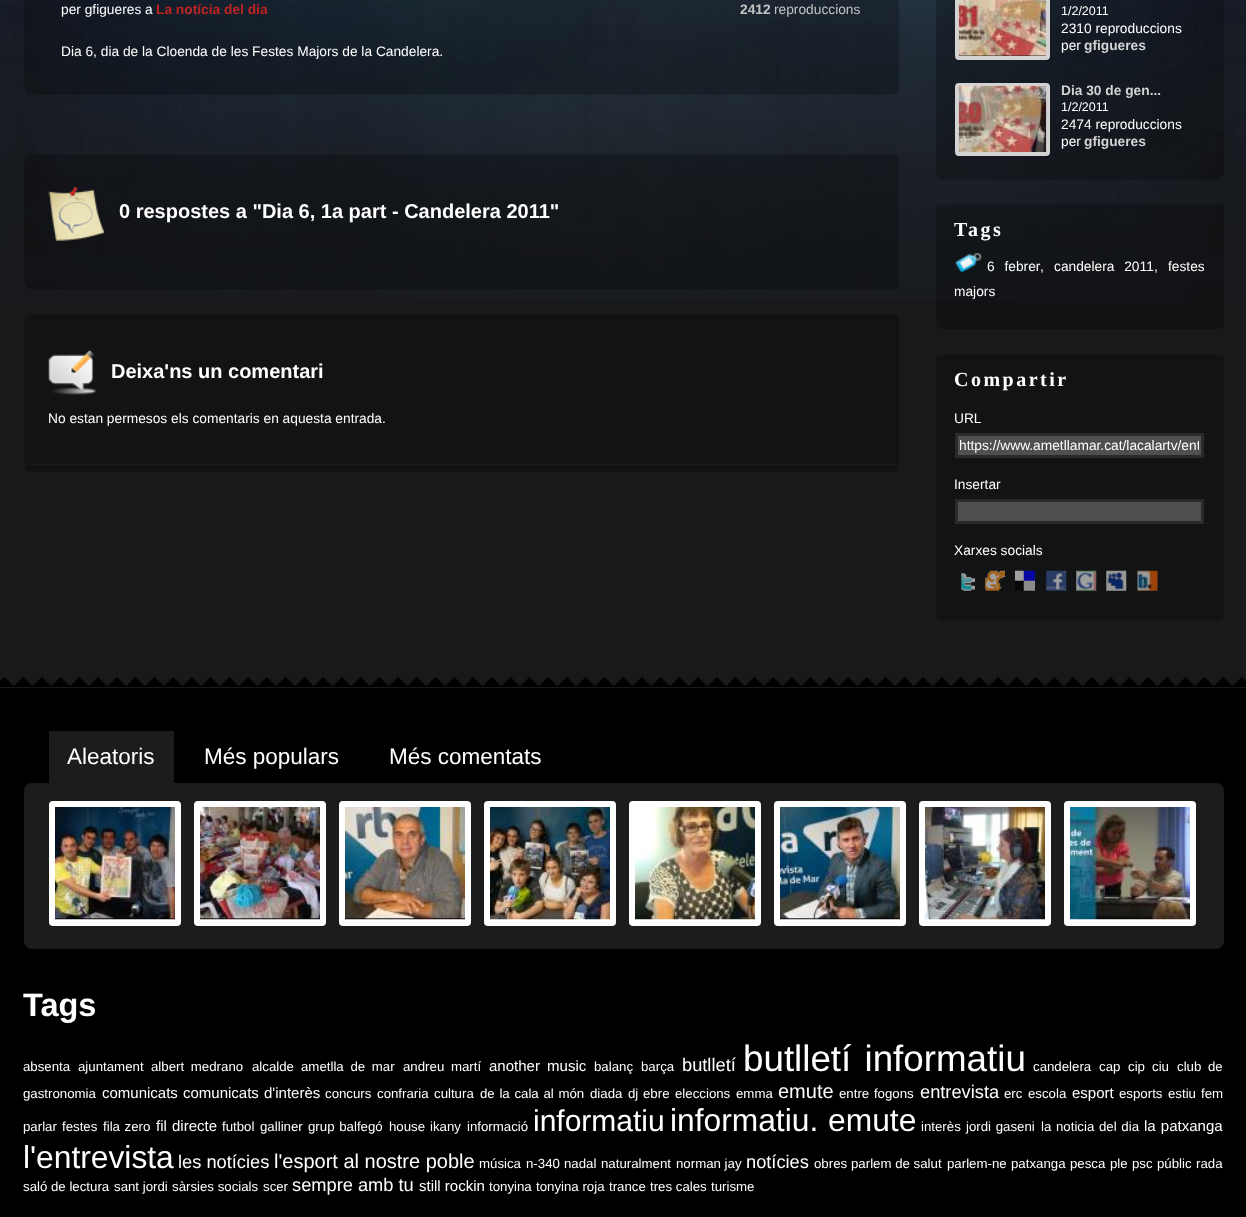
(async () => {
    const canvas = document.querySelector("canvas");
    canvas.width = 1246;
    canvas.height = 1217;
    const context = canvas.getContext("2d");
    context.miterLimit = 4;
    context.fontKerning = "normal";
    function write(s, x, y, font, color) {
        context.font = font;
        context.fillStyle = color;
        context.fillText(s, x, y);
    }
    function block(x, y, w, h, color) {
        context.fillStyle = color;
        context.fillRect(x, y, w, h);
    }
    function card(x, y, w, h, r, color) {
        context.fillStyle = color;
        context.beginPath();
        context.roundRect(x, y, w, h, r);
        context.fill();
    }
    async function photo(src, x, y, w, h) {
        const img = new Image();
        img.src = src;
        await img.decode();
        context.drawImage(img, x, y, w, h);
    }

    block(0, 0, 1246, 1217, "rgb(24, 25, 27)");
    await photo("media/1.png", 0, 0, 1246, 301);
    block(24, 0, 875, 87, "rgba(0, 0, 0, 0.25)");
    write("per gfigueres a", 61, 14, "13.75px Liberation Sans", "rgb(255, 255, 255)");
    write("La notícia del dia", 156, 14, "bold 13.75px Liberation Sans", "rgb(189, 37, 37)");
    write("2412", 740, 14, "bold 13.75px Liberation Sans", "rgb(195, 195, 195)");
    write("reproduccions", 774, 14, "13.75px Liberation Sans", "rgb(195, 195, 195)");
    write("Dia 6, dia de la Cloenda de les Festes Majors de la Candelera.", 61, 56, "13.75px Liberation Sans", "rgb(255, 255, 255)");
    await photo("media/2.png", 25, 87, 874, 8);
    await photo("media/3.png", 25, 154, 874, 8);
    block(24, 162, 875, 120, "rgba(0, 0, 0, 0.25)");
    await photo("media/4.png", 48, 187, 57, 54);
    write("0 respostes a \"Dia 6, 1a part - Candelera 2011\"", 119, 218, "bold 20px Liberation Sans", "rgb(255, 255, 255)");
    await photo("media/5.png", 25, 282, 874, 8);
    await photo("media/6.png", 25, 315, 874, 7);
    block(24, 322, 875, 142, "rgb(18, 19, 20)");
    await photo("media/7.png", 48, 350, 49, 45);
    write("Deixa'ns un comentari", 111, 378, "bold 20px Liberation Sans", "rgb(255, 255, 255)");
    write("No estan permesos els comentaris en aquesta entrada.", 48, 423, "13.75px Liberation Sans", "rgb(255, 255, 255)");
    await photo("media/8.png", 25, 465, 874, 7);
    block(936, 0, 288, 172, "rgba(0, 0, 0, 0.25)");
    context.beginPath();
    context.roundRect(957, -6, 91, 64, 2);
    context.strokeStyle = "rgb(211, 211, 211)";
    context.lineWidth = 4;
    context.stroke();
    await photo("media/9.png", 958, 0, 89, 56);
    write("1/2/2011", 1061, 15, "12.5px Liberation Sans", "rgb(255, 255, 255)");
    write("2310 reproduccions", 1061, 33, "13.75px Liberation Sans", "rgb(255, 255, 255)");
    write("per", 1061, 50, "13.75px Liberation Sans", "rgb(255, 255, 255)");
    write("gfigueres", 1084, 50, "bold 13.75px Liberation Sans", "rgb(211, 211, 211)");
    context.beginPath();
    context.roundRect(957, 85, 91, 69, 2);
    context.stroke();
    await photo("media/10.png", 958, 85, 89, 67);
    write("Dia 30 de gen...", 1061, 95, "bold 13.75px Liberation Sans", "rgb(211, 211, 211)");
    write("1/2/2011", 1061, 111, "12.5px Liberation Sans", "rgb(255, 255, 255)");
    write("2474 reproduccions", 1061, 129, "13.75px Liberation Sans", "rgb(255, 255, 255)");
    write("per", 1061, 146, "13.75px Liberation Sans", "rgb(255, 255, 255)");
    write("gfigueres", 1084, 146, "bold 13.75px Liberation Sans", "rgb(211, 211, 211)");
    await photo("media/11.png", 936, 172, 288, 8);
    await photo("media/12.png", 936, 204, 288, 8);
    block(936, 212, 288, 110, "rgba(0, 0, 0, 0.25)");
    context.letterSpacing = "2.5px";
    write("Tags", 954, 236, "bold 20px Liberation Serif", "rgb(255, 255, 255)");
    await photo("media/13.png", 955, 253, 27, 20);
    context.letterSpacing = "0px";
    context.wordSpacing = "6px";
    write("6 febrer", 987, 271, "13.75px Liberation Sans", "rgb(255, 255, 255)");
    context.wordSpacing = "0px";
    write(",", 1040, 271, "13.75px Liberation Sans", "rgb(255, 255, 255)");
    context.wordSpacing = "6px";
    write("candelera 2011", 1054, 271, "13.75px Liberation Sans", "rgb(255, 255, 255)");
    context.wordSpacing = "0px";
    write(",", 1154, 271, "13.75px Liberation Sans", "rgb(255, 255, 255)");
    write("festes", 1168, 271, "13.75px Liberation Sans", "rgb(255, 255, 255)");
    write("majors", 954, 296, "13.75px Liberation Sans", "rgb(255, 255, 255)");
    await photo("media/14.png", 936, 322, 288, 7);
    await photo("media/15.png", 936, 355, 288, 7);
    block(936, 362, 288, 251, "rgb(18, 19, 20)");
    context.letterSpacing = "2.5px";
    write("Compartir", 954, 386, "bold 20px Liberation Serif", "rgb(255, 255, 255)");
    context.letterSpacing = "0px";
    write("URL", 954, 423, "13.75px Liberation Sans", "rgb(255, 255, 255)");
    context.fillStyle = "rgb(79, 79, 79)";
    context.beginPath();
    context.rect(956.5, 434.5, 246, 22);
    context.fill();
    context.strokeStyle = "rgb(42, 42, 42)";
    context.lineWidth = 3;
    context.stroke();
    context.save();
    context.beginPath();
    context.rect(960, 438, 239, 15);
    context.clip();
    write("https://www.ametllamar.cat/lacalartv/ent", 959, 450, "13.75px Liberation Sans", "rgb(255, 255, 255)");
    context.restore();
    write("Insertar", 954, 489, "13.75px Liberation Sans", "rgb(255, 255, 255)");
    context.fillStyle = "rgb(79, 79, 79)";
    context.beginPath();
    context.rect(956.5, 500.5, 246, 22);
    context.fill();
    context.stroke();
    write("Xarxes socials", 954, 555, "13.75px Liberation Sans", "rgb(255, 255, 255)");
    await photo("media/16.png", 961, 573, 14, 18);
    await photo("media/17.png", 985, 570, 20, 21);
    await photo("media/18.png", 1015, 570, 20, 21);
    await photo("media/19.png", 1046, 570, 21, 21);
    await photo("media/20.png", 1076, 570, 21, 21);
    await photo("media/21.png", 1106, 570, 21, 21);
    await photo("media/22.png", 1137, 570, 21, 21);
    await photo("media/23.png", 936, 613, 288, 8);
    await photo("media/24.png", 0, 677, 1246, 10);
    block(0, 688, 1246, 529, "rgb(0, 0, 0)");
    block(49, 731, 125, 52, "rgb(26, 29, 28)");
    write("Aleatoris", 67, 764, "22.5px Liberation Sans", "rgb(255, 255, 255)");
    write("Més populars", 204, 764, "22.5px Liberation Sans", "rgb(255, 255, 255)");
    write("Més comentats", 389, 764, "22.5px Liberation Sans", "rgb(255, 255, 255)");
    card(24, 783, 1200, 166, 8, "rgb(26, 29, 28)");
    card(49, 801, 132, 125, 4, "rgb(255, 255, 255)");
    card(194, 801, 132, 125, 4, "rgb(255, 255, 255)");
    card(339, 801, 132, 125, 4, "rgb(255, 255, 255)");
    card(484, 801, 132, 125, 4, "rgb(255, 255, 255)");
    card(629, 801, 132, 125, 4, "rgb(255, 255, 255)");
    card(774, 801, 132, 125, 4, "rgb(255, 255, 255)");
    card(919, 801, 132, 125, 4, "rgb(255, 255, 255)");
    card(1064, 801, 132, 125, 4, "rgb(255, 255, 255)");
    await photo("media/25.png", 55, 807, 120, 113);
    await photo("media/26.png", 200, 807, 120, 113);
    await photo("media/27.png", 345, 807, 120, 113);
    await photo("media/28.png", 490, 807, 120, 113);
    await photo("media/29.png", 635, 807, 120, 113);
    await photo("media/30.png", 780, 807, 120, 113);
    await photo("media/31.png", 925, 807, 120, 113);
    await photo("media/32.png", 1070, 807, 120, 113);
    write("Tags", 23, 1016, "bold 32.5px Liberation Sans", "rgb(255, 255, 255)");
    write("absenta", 23, 1071, "13.25px Liberation Sans", "rgb(255, 255, 255)");
    write("ajuntament", 78, 1071, "13.25px Liberation Sans", "rgb(255, 255, 255)");
    context.wordSpacing = "3px";
    write("albert medrano", 151, 1071, "13.25px Liberation Sans", "rgb(255, 255, 255)");
    context.wordSpacing = "0px";
    write("alcalde", 252, 1071, "13.25px Liberation Sans", "rgb(255, 255, 255)");
    context.wordSpacing = "3px";
    write("ametlla de mar", 301, 1071, "13.25px Liberation Sans", "rgb(255, 255, 255)");
    write("andreu martí", 403, 1071, "13.25px Liberation Sans", "rgb(255, 255, 255)");
    write("another music", 489, 1071, "15px Liberation Sans", "rgb(255, 255, 255)");
    context.wordSpacing = "0px";
    write("balanç", 594, 1071, "13.25px Liberation Sans", "rgb(255, 255, 255)");
    write("barça", 641, 1071, "13.25px Liberation Sans", "rgb(255, 255, 255)");
    write("butlletí", 682, 1071, "18.25px Liberation Sans", "rgb(255, 255, 255)");
    context.wordSpacing = "3px";
    write("butlletí informatiu", 743, 1071, "36.75px Liberation Sans", "rgb(255, 255, 255)");
    context.wordSpacing = "0px";
    write("candelera", 1033, 1071, "13.25px Liberation Sans", "rgb(255, 255, 255)");
    write("cap", 1099, 1071, "13.25px Liberation Sans", "rgb(255, 255, 255)");
    write("cip", 1128, 1071, "13.25px Liberation Sans", "rgb(255, 255, 255)");
    write("ciu", 1152, 1071, "13.25px Liberation Sans", "rgb(255, 255, 255)");
    context.wordSpacing = "3px";
    write("club de", 1177, 1071, "13.25px Liberation Sans", "rgb(255, 255, 255)");
    context.wordSpacing = "0px";
    write("gastronomia", 23, 1098, "13.25px Liberation Sans", "rgb(255, 255, 255)");
    write("comunicats", 102, 1098, "15px Liberation Sans", "rgb(255, 255, 255)");
    context.wordSpacing = "1px";
    write("comunicats d'interès", 183, 1098, "15px Liberation Sans", "rgb(255, 255, 255)");
    context.wordSpacing = "0px";
    write("concurs", 325, 1098, "13.25px Liberation Sans", "rgb(255, 255, 255)");
    write("confraria", 377, 1098, "13.25px Liberation Sans", "rgb(255, 255, 255)");
    write("cultura", 434, 1098, "13.25px Liberation Sans", "rgb(255, 255, 255)");
    context.wordSpacing = "1px";
    write("de la cala al món", 480, 1098, "13.25px Liberation Sans", "rgb(255, 255, 255)");
    context.wordSpacing = "0px";
    write("diada", 590, 1098, "13.25px Liberation Sans", "rgb(255, 255, 255)");
    write("dj", 628, 1098, "13.25px Liberation Sans", "rgb(255, 255, 255)");
    write("ebre", 643, 1098, "13.25px Liberation Sans", "rgb(255, 255, 255)");
    write("eleccions", 675, 1098, "13.25px Liberation Sans", "rgb(255, 255, 255)");
    write("emma", 736, 1098, "13.25px Liberation Sans", "rgb(255, 255, 255)");
    write("emute", 778, 1098, "20px Liberation Sans", "rgb(255, 255, 255)");
    context.wordSpacing = "1px";
    write("entre fogons", 839, 1098, "13.25px Liberation Sans", "rgb(255, 255, 255)");
    context.wordSpacing = "0px";
    write("entrevista", 920, 1098, "18.25px Liberation Sans", "rgb(255, 255, 255)");
    write("erc", 1004, 1098, "13.25px Liberation Sans", "rgb(255, 255, 255)");
    write("escola", 1028, 1098, "13.25px Liberation Sans", "rgb(255, 255, 255)");
    write("esport", 1072, 1098, "15px Liberation Sans", "rgb(255, 255, 255)");
    write("esports", 1119, 1098, "13.25px Liberation Sans", "rgb(255, 255, 255)");
    write("estiu", 1168, 1098, "13.25px Liberation Sans", "rgb(255, 255, 255)");
    write("fem", 1201, 1098, "13.25px Liberation Sans", "rgb(255, 255, 255)");
    write("parlar", 23, 1131, "13.25px Liberation Sans", "rgb(255, 255, 255)");
    write("festes", 62, 1131, "13.25px Liberation Sans", "rgb(255, 255, 255)");
    context.wordSpacing = "1px";
    write("fila zero", 103, 1131, "13.25px Liberation Sans", "rgb(255, 255, 255)");
    write("fil directe", 156, 1131, "15px Liberation Sans", "rgb(255, 255, 255)");
    context.wordSpacing = "0px";
    write("futbol", 222, 1131, "13.25px Liberation Sans", "rgb(255, 255, 255)");
    write("galliner", 260, 1131, "13.25px Liberation Sans", "rgb(255, 255, 255)");
    context.wordSpacing = "1px";
    write("grup balfegó", 308, 1131, "13.25px Liberation Sans", "rgb(255, 255, 255)");
    context.wordSpacing = "0px";
    write("house", 389, 1131, "13.25px Liberation Sans", "rgb(255, 255, 255)");
    write("ikany", 430, 1131, "13.25px Liberation Sans", "rgb(255, 255, 255)");
    write("informació", 467, 1131, "13.25px Liberation Sans", "rgb(255, 255, 255)");
    write("informatiu", 533, 1131, "30px Liberation Sans", "rgb(255, 255, 255)");
    context.wordSpacing = "1px";
    write("informatiu. emute", 670, 1131, "31.75px Liberation Sans", "rgb(255, 255, 255)");
    context.wordSpacing = "0px";
    write("interès", 921, 1131, "13.25px Liberation Sans", "rgb(255, 255, 255)");
    context.wordSpacing = "1px";
    write("jordi gaseni", 966, 1131, "13.25px Liberation Sans", "rgb(255, 255, 255)");
    write("la noticia del dia", 1041, 1131, "13.25px Liberation Sans", "rgb(255, 255, 255)");
    write("la patxanga", 1144, 1131, "15px Liberation Sans", "rgb(255, 255, 255)");
    context.wordSpacing = "0px";
    write("l'entrevista", 23, 1168, "31.75px Liberation Sans", "rgb(255, 255, 255)");
    write("les notícies", 178, 1168, "18.25px Liberation Sans", "rgb(255, 255, 255)");
    write("l'esport al nostre poble", 274, 1168, "20px Liberation Sans", "rgb(255, 255, 255)");
    write("música", 479, 1168, "13.25px Liberation Sans", "rgb(255, 255, 255)");
    write("n-340", 526, 1168, "13.25px Liberation Sans", "rgb(255, 255, 255)");
    write("nadal", 564, 1168, "13.25px Liberation Sans", "rgb(255, 255, 255)");
    write("naturalment", 601, 1168, "13.25px Liberation Sans", "rgb(255, 255, 255)");
    write("norman jay", 676, 1168, "13.25px Liberation Sans", "rgb(255, 255, 255)");
    write("notícies", 746, 1168, "18.25px Liberation Sans", "rgb(255, 255, 255)");
    write("obres", 814, 1168, "13.25px Liberation Sans", "rgb(255, 255, 255)");
    write("parlem de salut", 851, 1168, "13.25px Liberation Sans", "rgb(255, 255, 255)");
    write("parlem-ne", 947, 1168, "13.25px Liberation Sans", "rgb(255, 255, 255)");
    write("patxanga", 1011, 1168, "13.25px Liberation Sans", "rgb(255, 255, 255)");
    write("pesca", 1070, 1168, "13.25px Liberation Sans", "rgb(255, 255, 255)");
    write("ple", 1110, 1168, "13.25px Liberation Sans", "rgb(255, 255, 255)");
    write("psc", 1132, 1168, "13.25px Liberation Sans", "rgb(255, 255, 255)");
    write("públic", 1157, 1168, "13.25px Liberation Sans", "rgb(255, 255, 255)");
    write("rada", 1196, 1168, "13.25px Liberation Sans", "rgb(255, 255, 255)");
    write("saló de lectura", 23, 1191, "13.25px Liberation Sans", "rgb(255, 255, 255)");
    write("sant jordi", 114, 1191, "13.25px Liberation Sans", "rgb(255, 255, 255)");
    write("sàrsies socials", 172, 1191, "13.25px Liberation Sans", "rgb(255, 255, 255)");
    write("scer", 263, 1191, "13.25px Liberation Sans", "rgb(255, 255, 255)");
    write("sempre amb tu", 292, 1191, "18.25px Liberation Sans", "rgb(255, 255, 255)");
    write("still rockin", 419, 1191, "15px Liberation Sans", "rgb(255, 255, 255)");
    write("tonyina", 489, 1191, "13.25px Liberation Sans", "rgb(255, 255, 255)");
    write("tonyina roja", 536, 1191, "13.25px Liberation Sans", "rgb(255, 255, 255)");
    write("trance", 609, 1191, "13.25px Liberation Sans", "rgb(255, 255, 255)");
    write("tres cales", 650, 1191, "13.25px Liberation Sans", "rgb(255, 255, 255)");
    write("turisme", 711, 1191, "13.25px Liberation Sans", "rgb(255, 255, 255)");
})();
